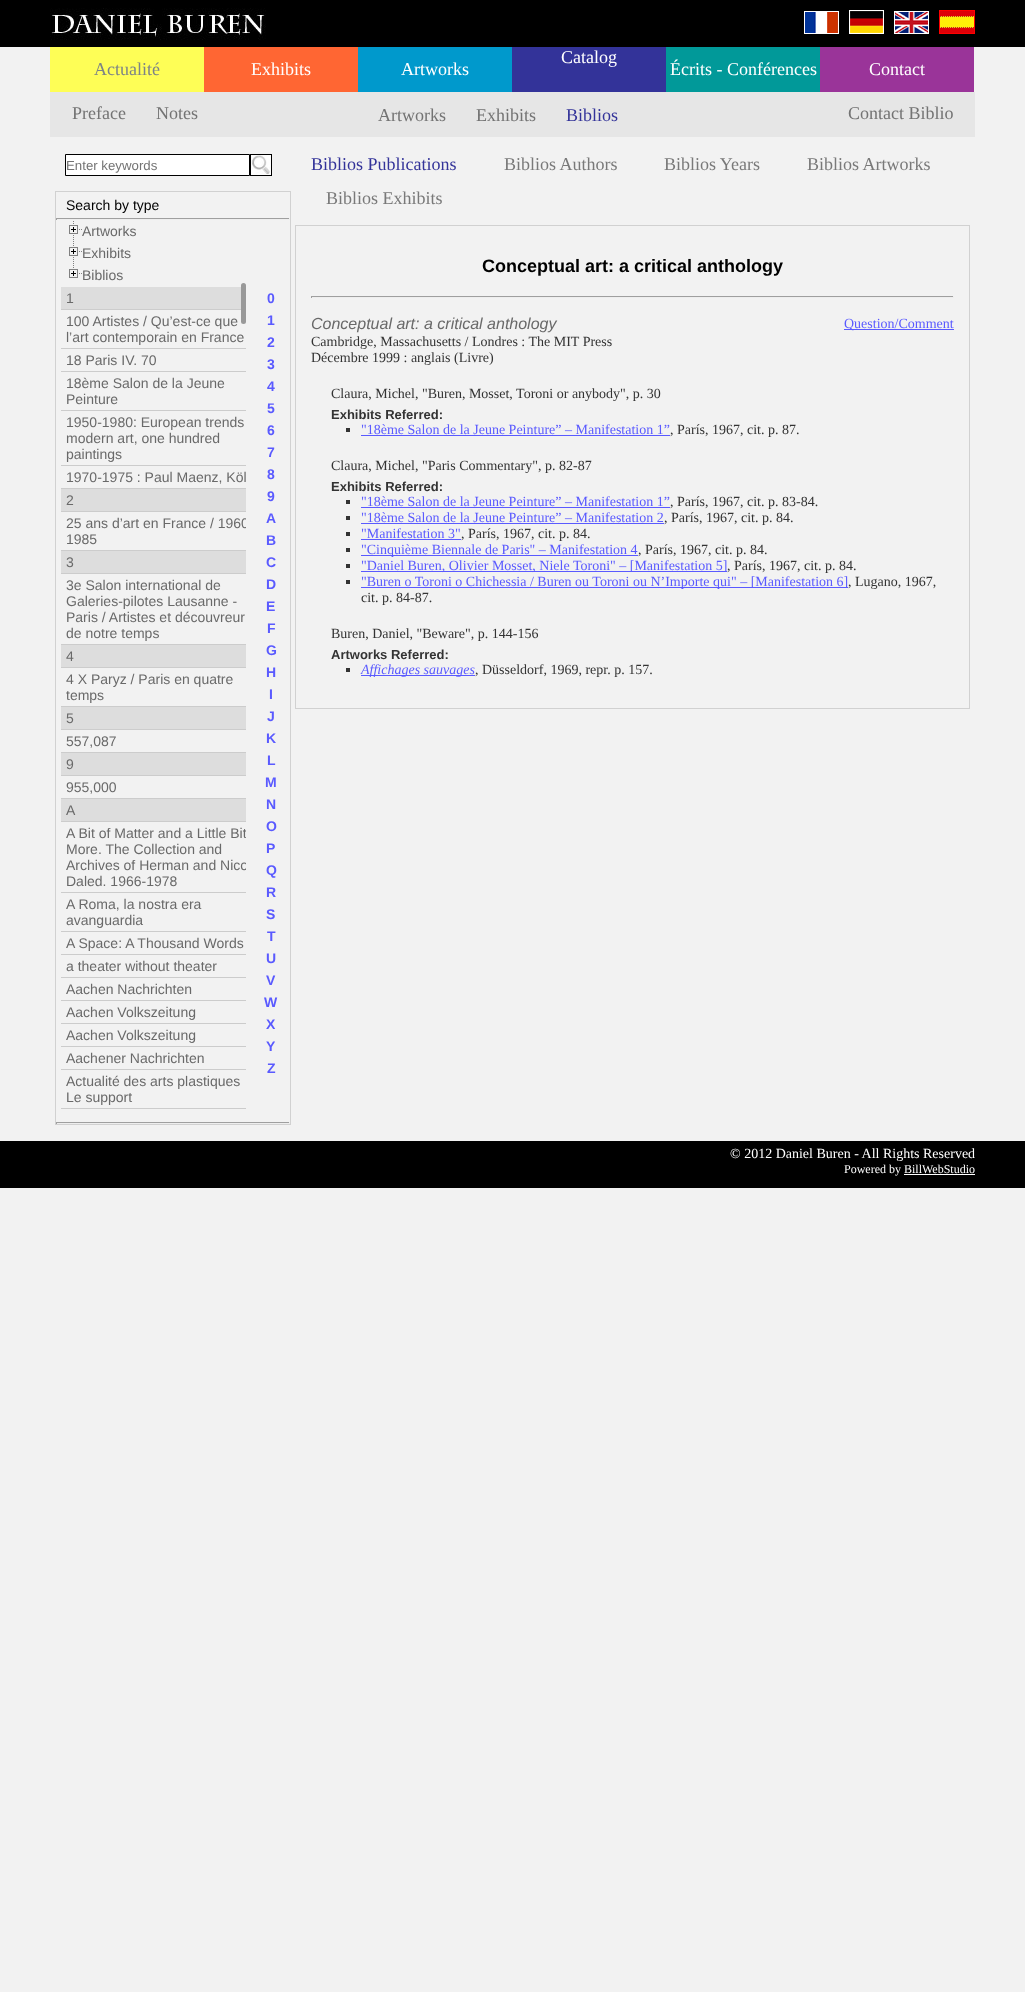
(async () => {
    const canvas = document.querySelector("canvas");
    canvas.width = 1025;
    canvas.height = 1992;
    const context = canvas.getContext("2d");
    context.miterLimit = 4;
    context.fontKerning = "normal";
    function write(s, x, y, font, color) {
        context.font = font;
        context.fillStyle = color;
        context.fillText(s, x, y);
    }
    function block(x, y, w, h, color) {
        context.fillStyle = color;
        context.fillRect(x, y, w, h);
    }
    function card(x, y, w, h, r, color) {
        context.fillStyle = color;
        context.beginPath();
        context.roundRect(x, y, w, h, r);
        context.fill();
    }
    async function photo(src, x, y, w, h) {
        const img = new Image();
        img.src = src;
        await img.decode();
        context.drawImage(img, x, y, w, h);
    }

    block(0, 0, 1025, 1992, "rgb(242, 242, 242)");
    block(0, 0, 1025, 47, "rgb(0, 0, 0)");
    await photo("media/1.png", 50, 8, 216, 32);
    context.strokeStyle = "rgb(255, 255, 255)";
    context.strokeRect(804.5, 11.5, 34, 22);
    context.strokeRect(849.5, 10.5, 34, 23);
    context.strokeStyle = "rgb(255, 0, 0)";
    context.strokeRect(939.5, 10.5, 35, 23);
    await photo("media/2.png", 805, 12, 33, 21);
    await photo("media/3.png", 850, 11, 33, 22);
    context.strokeStyle = "rgb(255, 255, 255)";
    context.strokeRect(894.5, 11.5, 34, 22);
    await photo("media/4.png", 940, 11, 34, 22);
    await photo("media/5.png", 895, 12, 33, 21);
    block(50, 47, 154, 45, "rgb(254, 254, 86)");
    write("Actualité", 94, 75, "18px Liberation Serif", "rgb(124, 131, 135)");
    block(204, 47, 154, 45, "rgb(255, 102, 51)");
    write("Exhibits", 251, 75, "18px Liberation Serif", "rgb(255, 255, 255)");
    block(358, 47, 154, 45, "rgb(0, 153, 204)");
    write("Artworks", 401, 75, "18px Liberation Serif", "rgb(255, 255, 255)");
    block(512, 47, 154, 45, "rgb(51, 51, 153)");
    write("Catalog", 561, 63, "18px Liberation Serif", "rgb(255, 255, 255)");
    block(666, 47, 154, 45, "rgb(1, 153, 153)");
    write("Écrits - Conférences", 670, 75, "18px Liberation Serif", "rgb(255, 255, 255)");
    block(820, 47, 154, 45, "rgb(154, 52, 153)");
    write("Contact", 869, 75, "18px Liberation Serif", "rgb(255, 255, 255)");
    block(50, 92, 925, 45, "rgb(230, 230, 230)");
    write("Preface", 72, 119, "18px Liberation Serif", "rgb(115, 115, 115)");
    write("Notes", 156, 119, "18px Liberation Serif", "rgb(115, 115, 115)");
    write("Artworks", 378, 121, "18px Liberation Serif", "rgb(115, 115, 115)");
    write("Exhibits", 476, 121, "18px Liberation Serif", "rgb(115, 115, 115)");
    write("Biblios", 566, 121, "18px Liberation Serif", "rgb(51, 51, 153)");
    write("Contact Biblio", 848, 119, "18px Liberation Serif", "rgb(115, 115, 115)");
    context.fillStyle = "rgb(255, 255, 255)";
    context.beginPath();
    context.rect(65.5, 154.5, 184, 21);
    context.fill();
    context.strokeStyle = "rgb(0, 0, 0)";
    context.stroke();
    write("Enter keywords", 66, 170, "13.25px Liberation Sans", "rgb(115, 115, 115)");
    context.strokeRect(250.5, 154.5, 21, 21);
    await photo("media/6.png", 251, 155, 20, 20);
    context.strokeStyle = "rgb(209, 209, 209)";
    context.strokeRect(55.5, 191.5, 235, 933);
    write("Search by type", 66, 210, "14px Liberation Sans", "rgb(0, 0, 0)");
    block(56, 218, 234, 1, "rgb(159, 159, 159)");
    block(289, 218, 1, 2, "rgb(238, 238, 238)");
    block(56, 219, 234, 1, "rgb(238, 238, 238)");
    block(56, 218, 1, 2, "rgb(159, 159, 159)");
    await photo("media/7.png", 73, 221, 1, 21);
    await photo("media/8.png", 69, 225, 13, 9);
    write("Artworks", 82, 236, "14px Liberation Sans", "rgb(105, 105, 105)");
    await photo("media/7.png", 73, 243, 1, 21);
    await photo("media/8.png", 69, 247, 13, 9);
    write("Exhibits", 82, 258, "14px Liberation Sans", "rgb(105, 105, 105)");
    await photo("media/9.png", 69, 265, 13, 13);
    write("Biblios", 82, 280, "14px Liberation Sans", "rgb(105, 105, 105)");
    block(61, 309, 185, 1, "rgb(204, 204, 204)");
    card(241, 283, 5, 41, 2.5, "rgb(153, 153, 153)");
    block(61, 287, 180, 22, "rgb(221, 221, 221)");
    write("1", 66, 303, "14px Liberation Sans", "rgb(105, 105, 105)");
    block(61, 348, 185, 1, "rgb(204, 204, 204)");
    write("100 Artistes / Qu’est-ce que", 66, 326, "14px Liberation Sans", "rgb(105, 105, 105)");
    write("l’art contemporain en France", 66, 342, "14px Liberation Sans", "rgb(105, 105, 105)");
    block(61, 371, 185, 1, "rgb(204, 204, 204)");
    write("18 Paris IV. 70", 66, 365, "14px Liberation Sans", "rgb(105, 105, 105)");
    block(61, 410, 185, 1, "rgb(204, 204, 204)");
    write("18ème Salon de la Jeune", 66, 388, "14px Liberation Sans", "rgb(105, 105, 105)");
    write("Peinture", 66, 404, "14px Liberation Sans", "rgb(105, 105, 105)");
    block(61, 465, 185, 1, "rgb(204, 204, 204)");
    write("1950-1980: European trends", 66, 427, "14px Liberation Sans", "rgb(105, 105, 105)");
    write("modern art, one hundred", 66, 443, "14px Liberation Sans", "rgb(105, 105, 105)");
    write("paintings", 66, 459, "14px Liberation Sans", "rgb(105, 105, 105)");
    block(61, 488, 185, 1, "rgb(204, 204, 204)");
    write("1970-1975 : Paul Maenz, Köl", 66, 482, "14px Liberation Sans", "rgb(105, 105, 105)");
    block(61, 489, 185, 22, "rgb(221, 221, 221)");
    block(61, 511, 185, 1, "rgb(204, 204, 204)");
    write("2", 66, 505, "14px Liberation Sans", "rgb(105, 105, 105)");
    block(61, 550, 185, 1, "rgb(204, 204, 204)");
    context.save();
    context.beginPath();
    context.rect(56, 283, 190, 835);
    context.clip();
    write("25 ans d’art en France / 1960", 66, 528, "14px Liberation Sans", "rgb(105, 105, 105)");
    context.restore();
    write("1985", 66, 544, "14px Liberation Sans", "rgb(105, 105, 105)");
    block(61, 551, 185, 22, "rgb(221, 221, 221)");
    block(61, 573, 185, 1, "rgb(204, 204, 204)");
    write("3", 66, 567, "14px Liberation Sans", "rgb(105, 105, 105)");
    block(61, 644, 185, 1, "rgb(204, 204, 204)");
    write("3e Salon international de", 66, 590, "14px Liberation Sans", "rgb(105, 105, 105)");
    write("Galeries-pilotes Lausanne -", 66, 606, "14px Liberation Sans", "rgb(105, 105, 105)");
    write("Paris / Artistes et découvreur", 66, 622, "14px Liberation Sans", "rgb(105, 105, 105)");
    write("de notre temps", 66, 638, "14px Liberation Sans", "rgb(105, 105, 105)");
    block(61, 645, 185, 22, "rgb(221, 221, 221)");
    block(61, 667, 185, 1, "rgb(204, 204, 204)");
    write("4", 66, 661, "14px Liberation Sans", "rgb(105, 105, 105)");
    block(61, 706, 185, 1, "rgb(204, 204, 204)");
    write("4 X Paryz / Paris en quatre", 66, 684, "14px Liberation Sans", "rgb(105, 105, 105)");
    write("temps", 66, 700, "14px Liberation Sans", "rgb(105, 105, 105)");
    block(61, 707, 185, 22, "rgb(221, 221, 221)");
    block(61, 729, 185, 1, "rgb(204, 204, 204)");
    write("5", 66, 723, "14px Liberation Sans", "rgb(105, 105, 105)");
    block(61, 752, 185, 1, "rgb(204, 204, 204)");
    write("557,087", 66, 746, "14px Liberation Sans", "rgb(105, 105, 105)");
    block(61, 753, 185, 22, "rgb(221, 221, 221)");
    block(61, 775, 185, 1, "rgb(204, 204, 204)");
    write("9", 66, 769, "14px Liberation Sans", "rgb(105, 105, 105)");
    block(61, 798, 185, 1, "rgb(204, 204, 204)");
    write("955,000", 66, 792, "14px Liberation Sans", "rgb(105, 105, 105)");
    block(61, 799, 185, 22, "rgb(221, 221, 221)");
    block(61, 821, 185, 1, "rgb(204, 204, 204)");
    write("A", 66, 815, "14px Liberation Sans", "rgb(105, 105, 105)");
    block(61, 892, 185, 1, "rgb(204, 204, 204)");
    context.save();
    context.beginPath();
    context.rect(56, 283, 190, 835);
    context.clip();
    write("A Bit of Matter and a Little Bit", 66, 838, "14px Liberation Sans", "rgb(105, 105, 105)");
    context.restore();
    write("More. The Collection and", 66, 854, "14px Liberation Sans", "rgb(105, 105, 105)");
    context.save();
    context.beginPath();
    context.rect(56, 283, 190, 835);
    context.clip();
    write("Archives of Herman and Nico", 66, 870, "14px Liberation Sans", "rgb(105, 105, 105)");
    context.restore();
    write("Daled. 1966-1978", 66, 886, "14px Liberation Sans", "rgb(105, 105, 105)");
    block(61, 931, 185, 1, "rgb(204, 204, 204)");
    write("A Roma, la nostra era", 66, 909, "14px Liberation Sans", "rgb(105, 105, 105)");
    write("avanguardia", 66, 925, "14px Liberation Sans", "rgb(105, 105, 105)");
    block(61, 954, 185, 1, "rgb(204, 204, 204)");
    write("A Space: A Thousand Words", 66, 948, "14px Liberation Sans", "rgb(105, 105, 105)");
    block(61, 977, 185, 1, "rgb(204, 204, 204)");
    write("a theater without theater", 66, 971, "14px Liberation Sans", "rgb(105, 105, 105)");
    block(61, 1000, 185, 1, "rgb(204, 204, 204)");
    write("Aachen Nachrichten", 66, 994, "14px Liberation Sans", "rgb(105, 105, 105)");
    block(61, 1023, 185, 1, "rgb(204, 204, 204)");
    write("Aachen Volkszeitung", 66, 1017, "14px Liberation Sans", "rgb(105, 105, 105)");
    block(61, 1046, 185, 1, "rgb(204, 204, 204)");
    write("Aachen Volkszeitung", 66, 1040, "14px Liberation Sans", "rgb(105, 105, 105)");
    block(61, 1069, 185, 1, "rgb(204, 204, 204)");
    write("Aachener Nachrichten", 66, 1063, "14px Liberation Sans", "rgb(105, 105, 105)");
    block(61, 1108, 185, 1, "rgb(204, 204, 204)");
    write("Actualité des arts plastiques", 66, 1086, "14px Liberation Sans", "rgb(105, 105, 105)");
    write("Le support", 66, 1102, "14px Liberation Sans", "rgb(105, 105, 105)");
    write("0", 267, 303, "bold 14px Liberation Sans", "rgb(90, 90, 255)");
    write("1", 267, 325, "bold 14px Liberation Sans", "rgb(90, 90, 255)");
    write("2", 267, 347, "bold 14px Liberation Sans", "rgb(90, 90, 255)");
    write("3", 267, 369, "bold 14px Liberation Sans", "rgb(90, 90, 255)");
    write("4", 267, 391, "bold 14px Liberation Sans", "rgb(90, 90, 255)");
    write("5", 267, 413, "bold 14px Liberation Sans", "rgb(90, 90, 255)");
    write("6", 267, 435, "bold 14px Liberation Sans", "rgb(90, 90, 255)");
    write("7", 267, 457, "bold 14px Liberation Sans", "rgb(90, 90, 255)");
    write("8", 267, 479, "bold 14px Liberation Sans", "rgb(90, 90, 255)");
    write("9", 267, 501, "bold 14px Liberation Sans", "rgb(90, 90, 255)");
    write("A", 266, 523, "bold 14px Liberation Sans", "rgb(90, 90, 255)");
    write("B", 266, 545, "bold 14px Liberation Sans", "rgb(90, 90, 255)");
    write("C", 266, 567, "bold 14px Liberation Sans", "rgb(90, 90, 255)");
    write("D", 266, 589, "bold 14px Liberation Sans", "rgb(90, 90, 255)");
    write("E", 266, 611, "bold 14px Liberation Sans", "rgb(90, 90, 255)");
    write("F", 267, 633, "bold 14px Liberation Sans", "rgb(90, 90, 255)");
    write("G", 266, 655, "bold 14px Liberation Sans", "rgb(90, 90, 255)");
    write("H", 266, 677, "bold 14px Liberation Sans", "rgb(90, 90, 255)");
    write("I", 269, 699, "bold 14px Liberation Sans", "rgb(90, 90, 255)");
    write("J", 267, 721, "bold 14px Liberation Sans", "rgb(90, 90, 255)");
    write("K", 266, 743, "bold 14px Liberation Sans", "rgb(90, 90, 255)");
    write("L", 267, 765, "bold 14px Liberation Sans", "rgb(90, 90, 255)");
    write("M", 265, 787, "bold 14px Liberation Sans", "rgb(90, 90, 255)");
    write("N", 266, 809, "bold 14px Liberation Sans", "rgb(90, 90, 255)");
    write("O", 266, 831, "bold 14px Liberation Sans", "rgb(90, 90, 255)");
    write("P", 266, 853, "bold 14px Liberation Sans", "rgb(90, 90, 255)");
    write("Q", 266, 875, "bold 14px Liberation Sans", "rgb(90, 90, 255)");
    write("R", 266, 897, "bold 14px Liberation Sans", "rgb(90, 90, 255)");
    write("S", 266, 919, "bold 14px Liberation Sans", "rgb(90, 90, 255)");
    write("T", 267, 941, "bold 14px Liberation Sans", "rgb(90, 90, 255)");
    write("U", 266, 963, "bold 14px Liberation Sans", "rgb(90, 90, 255)");
    write("V", 266, 985, "bold 14px Liberation Sans", "rgb(90, 90, 255)");
    write("W", 264, 1007, "bold 14px Liberation Sans", "rgb(90, 90, 255)");
    write("X", 266, 1029, "bold 14px Liberation Sans", "rgb(90, 90, 255)");
    write("Y", 266, 1051, "bold 14px Liberation Sans", "rgb(90, 90, 255)");
    write("Z", 267, 1073, "bold 14px Liberation Sans", "rgb(90, 90, 255)");
    block(56, 1122, 234, 1, "rgb(159, 159, 159)");
    block(289, 1122, 1, 2, "rgb(238, 238, 238)");
    block(56, 1123, 234, 1, "rgb(238, 238, 238)");
    block(56, 1122, 1, 2, "rgb(159, 159, 159)");
    write("Biblios Publications", 311, 170, "18px Liberation Serif", "rgb(51, 51, 153)");
    write("Biblios Authors", 504, 170, "18px Liberation Serif", "rgb(121, 121, 121)");
    write("Biblios Years", 664, 170, "18px Liberation Serif", "rgb(121, 121, 121)");
    write("Biblios Artworks", 807, 170, "18px Liberation Serif", "rgb(121, 121, 121)");
    write("Biblios Exhibits", 326, 204, "18px Liberation Serif", "rgb(121, 121, 121)");
    context.strokeRect(295.5, 225.5, 674, 483);
    write("Conceptual art: a critical anthology", 482, 272, "bold 18px Liberation Sans", "rgb(0, 0, 0)");
    block(311, 296, 643, 1, "rgb(159, 159, 159)");
    block(953, 296, 1, 2, "rgb(238, 238, 238)");
    block(311, 297, 643, 1, "rgb(238, 238, 238)");
    block(311, 296, 1, 2, "rgb(159, 159, 159)");
    write("Conceptual art: a critical anthology", 311, 329, "italic 16px Liberation Sans", "rgb(105, 105, 105)");
    block(844, 329, 110, 1, "rgb(90, 90, 255)");
    write("Question/Comment", 844, 328, "14px Liberation Serif", "rgb(90, 90, 255)");
    write("Cambridge, Massachusetts / Londres : The MIT Press", 311, 346, "14px Liberation Serif", "rgb(51, 51, 51)");
    write("Décembre 1999 : anglais (Livre)", 311, 362, "14px Liberation Serif", "rgb(51, 51, 51)");
    write("Claura, Michel, \"Buren, Mosset, Toroni or anybody\", p. 30", 331, 398, "14px Liberation Serif", "rgb(51, 51, 51)");
    write("Exhibits Referred:", 331, 419, "bold 13px Liberation Sans", "rgb(51, 51, 51)");
    block(346, 428, 4, 4, "rgb(51, 51, 51)");
    write("\"18ème Salon de la Jeune Peinture” – Manifestation 1”", 361, 434, "14px Liberation Serif", "rgb(90, 90, 255)");
    block(361, 435, 309, 1, "rgb(90, 90, 255)");
    write(", París, 1967, cit. p. 87.", 670, 434, "14px Liberation Serif", "rgb(51, 51, 51)");
    write("Claura, Michel, \"Paris Commentary\", p. 82-87", 331, 470, "14px Liberation Serif", "rgb(51, 51, 51)");
    write("Exhibits Referred:", 331, 491, "bold 13px Liberation Sans", "rgb(51, 51, 51)");
    block(346, 500, 4, 4, "rgb(51, 51, 51)");
    write("\"18ème Salon de la Jeune Peinture” – Manifestation 1”", 361, 506, "14px Liberation Serif", "rgb(90, 90, 255)");
    block(361, 507, 309, 1, "rgb(90, 90, 255)");
    write(", París, 1967, cit. p. 83-84.", 670, 506, "14px Liberation Serif", "rgb(51, 51, 51)");
    block(346, 516, 4, 4, "rgb(51, 51, 51)");
    write("\"18ème Salon de la Jeune Peinture” – Manifestation 2", 361, 522, "14px Liberation Serif", "rgb(90, 90, 255)");
    block(361, 523, 303, 1, "rgb(90, 90, 255)");
    write(", París, 1967, cit. p. 84.", 664, 522, "14px Liberation Serif", "rgb(51, 51, 51)");
    block(346, 532, 4, 4, "rgb(51, 51, 51)");
    write("\"Manifestation 3\"", 361, 538, "14px Liberation Serif", "rgb(90, 90, 255)");
    block(361, 539, 100, 1, "rgb(90, 90, 255)");
    write(", París, 1967, cit. p. 84.", 461, 538, "14px Liberation Serif", "rgb(51, 51, 51)");
    block(346, 548, 4, 4, "rgb(51, 51, 51)");
    block(361, 555, 277, 1, "rgb(90, 90, 255)");
    write("\"Cinquième Biennale de Paris\" – Manifestation 4", 361, 554, "14px Liberation Serif", "rgb(90, 90, 255)");
    write(", París, 1967, cit. p. 84.", 638, 554, "14px Liberation Serif", "rgb(51, 51, 51)");
    block(346, 564, 4, 4, "rgb(51, 51, 51)");
    block(361, 571, 366, 1, "rgb(90, 90, 255)");
    write("\"Daniel Buren, Olivier Mosset, Niele Toroni\" – [Manifestation 5]", 361, 570, "14px Liberation Serif", "rgb(90, 90, 255)");
    write(", París, 1967, cit. p. 84.", 727, 570, "14px Liberation Serif", "rgb(51, 51, 51)");
    block(346, 580, 4, 4, "rgb(51, 51, 51)");
    block(361, 587, 487, 1, "rgb(90, 90, 255)");
    write("\"Buren o Toroni o Chichessia / Buren ou Toroni ou N’Importe qui\" – [Manifestation 6]", 361, 586, "14px Liberation Serif", "rgb(90, 90, 255)");
    write(", Lugano, 1967,", 848, 586, "14px Liberation Serif", "rgb(51, 51, 51)");
    write("cit. p. 84-87.", 361, 602, "14px Liberation Serif", "rgb(51, 51, 51)");
    write("Buren, Daniel, \"Beware\", p. 144-156", 331, 638, "14px Liberation Serif", "rgb(51, 51, 51)");
    write("Artworks Referred:", 331, 659, "bold 13px Liberation Sans", "rgb(51, 51, 51)");
    block(346, 668, 4, 4, "rgb(51, 51, 51)");
    block(361, 675, 114, 1, "rgb(90, 90, 255)");
    write("Affichages sauvages", 361, 674, "italic 14px Liberation Serif", "rgb(90, 90, 255)");
    write(", Düsseldorf, 1969, repr. p. 157.", 475, 674, "14px Liberation Serif", "rgb(51, 51, 51)");
    block(0, 1141, 1025, 47, "rgb(0, 0, 0)");
    write("© 2012 Daniel Buren - All Rights Reserved", 730, 1158, "14px Liberation Serif", "rgb(255, 255, 255)");
    write("Powered by BillWebStudio", 844, 1173, "12px Liberation Serif", "rgb(255, 255, 255)");
    block(904, 1174, 71, 1, "rgb(255, 255, 255)");
})();
